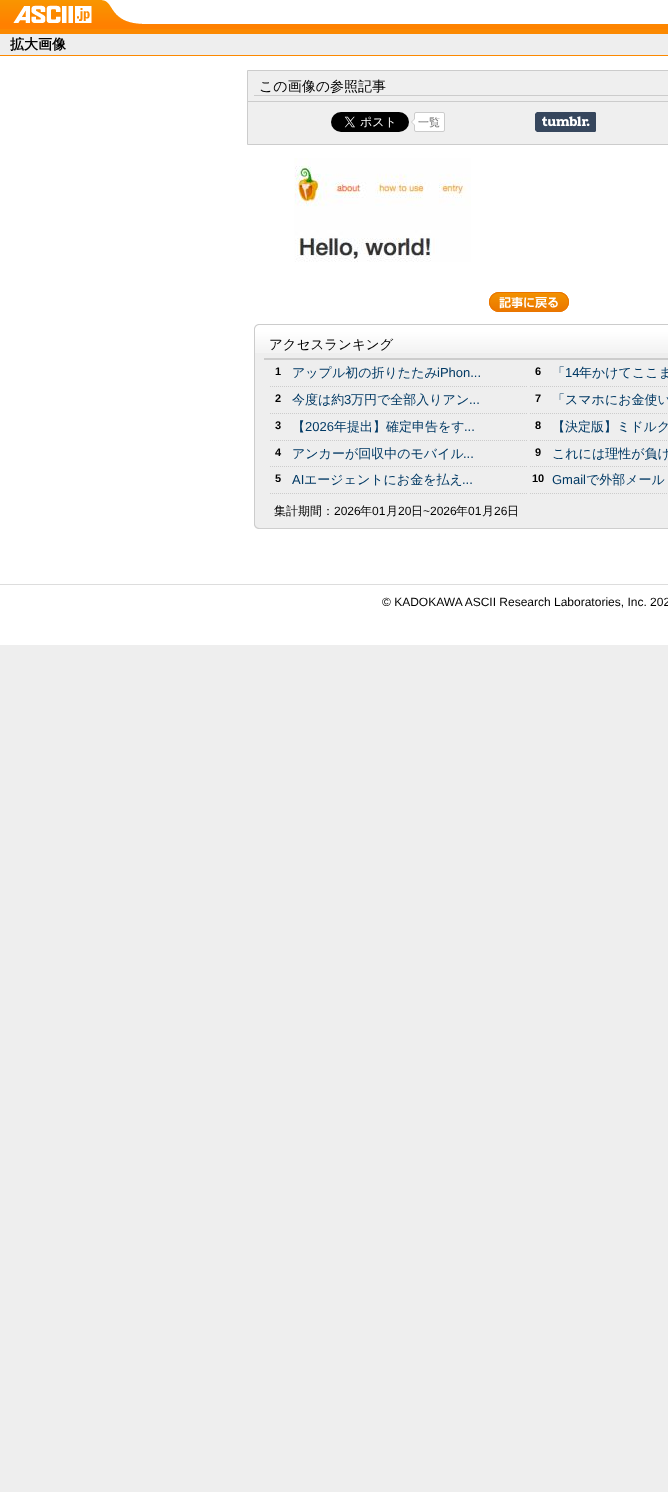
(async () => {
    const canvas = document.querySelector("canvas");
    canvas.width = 668;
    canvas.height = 1492;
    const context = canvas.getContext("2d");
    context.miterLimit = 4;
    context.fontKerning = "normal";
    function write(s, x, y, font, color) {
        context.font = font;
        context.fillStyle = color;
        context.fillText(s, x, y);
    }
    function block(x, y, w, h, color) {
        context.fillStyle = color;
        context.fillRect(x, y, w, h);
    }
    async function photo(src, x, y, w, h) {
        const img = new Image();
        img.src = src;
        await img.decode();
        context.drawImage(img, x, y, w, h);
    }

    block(0, 0, 668, 1492, "rgb(238, 238, 238)");
    block(0, 56, 668, 589, "rgb(255, 255, 255)");
    await photo("media/1.png", 0, 0, 668, 29);
    await photo("media/2.png", 13, 5, 79, 18);
    block(0, 29, 668, 5, "rgb(252, 137, 0)");
    block(0, 55, 668, 1, "rgb(252, 137, 0)");
    write("拡大画像", 10, 49, "bold 14px WenQuanYi Zen Hei", "rgb(0, 0, 0)");
    context.fillStyle = "rgb(239, 239, 239)";
    context.beginPath();
    context.rect(247.5, 70.5, 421, 74);
    context.fill();
    context.strokeStyle = "rgb(204, 204, 204)";
    context.stroke();
    block(254, 95, 414, 1, "rgb(204, 204, 204)");
    write("この画像の参照記事", 259, 91, "500 14px WenQuanYi Zen Hei", "rgb(0, 0, 0)");
    block(248, 101, 420, 1, "rgb(204, 204, 204)");
    await photo("media/3.png", 331, 112, 78, 20);
    context.fillStyle = "rgb(255, 255, 255)";
    context.beginPath();
    context.roundRect(414.5, 112.5, 30, 19, 1.5);
    context.fill();
    context.stroke();
    context.fillStyle = "rgb(204, 204, 204)";
    context.beginPath();
    context.moveTo(415, 118);
    context.lineTo(415, 126);
    context.lineTo(411, 122);
    context.closePath();
    context.fill();
    write("一覧", 418, 126, "500 11px WenQuanYi Zen Hei", "rgb(102, 102, 102)");
    context.fillStyle = "rgb(255, 255, 255)";
    context.beginPath();
    context.moveTo(415, 119);
    context.lineTo(415, 125);
    context.lineTo(412, 122);
    context.closePath();
    context.fill();
    await photo("media/4.png", 535, 112, 61, 20);
    await photo("media/5.png", 294, 158, 177, 104);
    await photo("media/6.png", 489, 292, 80, 20);
    await photo("media/7.png", 254, 353, 414, 176);
    await photo("media/8.png", 254, 324, 414, 29);
    block(264, 358, 404, 2, "rgb(204, 204, 204)");
    write("アクセスランキング", 269, 349, "500 13.5px WenQuanYi Zen Hei", "rgb(0, 0, 0)");
    context.beginPath();
    context.moveTo(270, 386.5);
    context.lineTo(528, 386.5);
    context.setLineDash([1, 1]);
    context.stroke();
    write("1", 275, 375, "bold 11px Liberation Sans", "rgb(0, 0, 0)");
    write("アップル初の折りたたみ", 292, 377, "500 13px WenQuanYi Zen Hei", "rgb(0, 57, 100)");
    write("iPhon...", 437, 377, "13px Liberation Sans", "rgb(0, 57, 100)");
    context.beginPath();
    context.moveTo(270, 413.5);
    context.lineTo(528, 413.5);
    context.stroke();
    write("2", 275, 402, "bold 11px Liberation Sans", "rgb(0, 0, 0)");
    write("今度は約", 292, 404, "500 13px WenQuanYi Zen Hei", "rgb(0, 57, 100)");
    write("3", 344, 404, "13px Liberation Sans", "rgb(0, 57, 100)");
    write("万円で全部入りアン", 351, 404, "500 13px WenQuanYi Zen Hei", "rgb(0, 57, 100)");
    write("...", 469, 404, "13px Liberation Sans", "rgb(0, 57, 100)");
    context.beginPath();
    context.moveTo(270, 440.5);
    context.lineTo(528, 440.5);
    context.stroke();
    write("3", 275, 429, "bold 11px Liberation Sans", "rgb(0, 0, 0)");
    write("【", 292, 431, "500 13px WenQuanYi Zen Hei", "rgb(0, 57, 100)");
    write("2026", 305, 431, "13px Liberation Sans", "rgb(0, 57, 100)");
    write("年提出】確定申告をす", 334, 431, "500 13px WenQuanYi Zen Hei", "rgb(0, 57, 100)");
    write("...", 464, 431, "13px Liberation Sans", "rgb(0, 57, 100)");
    context.beginPath();
    context.moveTo(270, 466.5);
    context.lineTo(528, 466.5);
    context.stroke();
    write("4", 275, 456, "bold 11px Liberation Sans", "rgb(0, 0, 0)");
    write("アンカーが回収中のモバイル", 292, 458, "500 13px WenQuanYi Zen Hei", "rgb(0, 57, 100)");
    write("...", 463, 458, "13px Liberation Sans", "rgb(0, 57, 100)");
    context.beginPath();
    context.moveTo(270, 493.5);
    context.lineTo(528, 493.5);
    context.stroke();
    write("5", 275, 482, "bold 11px Liberation Sans", "rgb(0, 0, 0)");
    write("AI", 292, 484, "13px Liberation Sans", "rgb(0, 57, 100)");
    write("エージェントにお金を払え", 304, 484, "500 13px WenQuanYi Zen Hei", "rgb(0, 57, 100)");
    write("...", 462, 484, "13px Liberation Sans", "rgb(0, 57, 100)");
    context.beginPath();
    context.moveTo(530, 386.5);
    context.lineTo(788, 386.5);
    context.stroke();
    write("6", 535, 375, "bold 11px Liberation Sans", "rgb(0, 0, 0)");
    write("「", 552, 377, "500 13px WenQuanYi Zen Hei", "rgb(0, 57, 100)");
    write("14", 565, 377, "13px Liberation Sans", "rgb(0, 57, 100)");
    write("年かけてここま", 579, 377, "500 13px WenQuanYi Zen Hei", "rgb(0, 57, 100)");
    context.beginPath();
    context.moveTo(530, 413.5);
    context.lineTo(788, 413.5);
    context.stroke();
    write("7", 535, 402, "bold 11px Liberation Sans", "rgb(0, 0, 0)");
    write("「スマホにお金使い", 552, 404, "500 13px WenQuanYi Zen Hei", "rgb(0, 57, 100)");
    context.beginPath();
    context.moveTo(530, 440.5);
    context.lineTo(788, 440.5);
    context.stroke();
    write("8", 535, 429, "bold 11px Liberation Sans", "rgb(0, 0, 0)");
    write("【決定版】ミドルク", 552, 431, "500 13px WenQuanYi Zen Hei", "rgb(0, 57, 100)");
    context.beginPath();
    context.moveTo(530, 466.5);
    context.lineTo(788, 466.5);
    context.stroke();
    write("9", 535, 456, "bold 11px Liberation Sans", "rgb(0, 0, 0)");
    write("これには理性が負け", 552, 458, "500 13px WenQuanYi Zen Hei", "rgb(0, 57, 100)");
    context.beginPath();
    context.moveTo(530, 493.5);
    context.lineTo(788, 493.5);
    context.stroke();
    write("10", 532, 482, "bold 11px Liberation Sans", "rgb(0, 0, 0)");
    write("Gmail", 552, 484, "13px Liberation Sans", "rgb(0, 57, 100)");
    write("で外部メール", 586, 484, "500 13px WenQuanYi Zen Hei", "rgb(0, 57, 100)");
    write("集計期間：", 274, 515, "500 12px WenQuanYi Zen Hei", "rgb(0, 0, 0)");
    write("2026", 334, 515, "12px Liberation Sans", "rgb(0, 0, 0)");
    write("年", 360, 515, "500 12px WenQuanYi Zen Hei", "rgb(0, 0, 0)");
    write("01", 372, 515, "12px Liberation Sans", "rgb(0, 0, 0)");
    write("月", 386, 515, "500 12px WenQuanYi Zen Hei", "rgb(0, 0, 0)");
    write("20", 398, 515, "12px Liberation Sans", "rgb(0, 0, 0)");
    write("日", 411, 515, "500 12px WenQuanYi Zen Hei", "rgb(0, 0, 0)");
    write("~2026", 423, 515, "12px Liberation Sans", "rgb(0, 0, 0)");
    write("年", 456, 515, "500 12px WenQuanYi Zen Hei", "rgb(0, 0, 0)");
    write("01", 468, 515, "12px Liberation Sans", "rgb(0, 0, 0)");
    write("月", 482, 515, "500 12px WenQuanYi Zen Hei", "rgb(0, 0, 0)");
    write("26", 494, 515, "12px Liberation Sans", "rgb(0, 0, 0)");
    write("日", 507, 515, "500 12px WenQuanYi Zen Hei", "rgb(0, 0, 0)");
    block(0, 584, 668, 1, "rgb(221, 221, 221)");
    write("© KADOKAWA ASCII Research Laboratories, Inc. 202", 382, 606, "12px Liberation Sans", "rgb(0, 0, 0)");
})();
